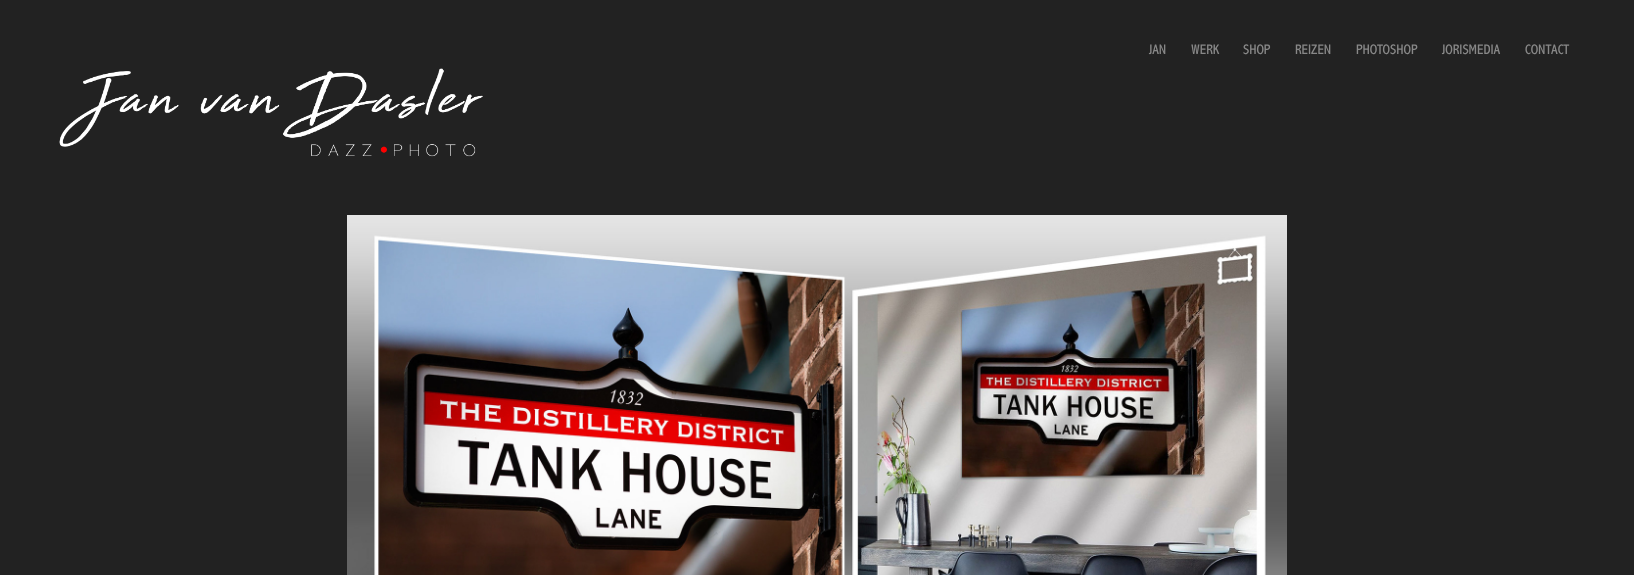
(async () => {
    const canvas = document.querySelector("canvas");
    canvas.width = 1634;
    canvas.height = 575;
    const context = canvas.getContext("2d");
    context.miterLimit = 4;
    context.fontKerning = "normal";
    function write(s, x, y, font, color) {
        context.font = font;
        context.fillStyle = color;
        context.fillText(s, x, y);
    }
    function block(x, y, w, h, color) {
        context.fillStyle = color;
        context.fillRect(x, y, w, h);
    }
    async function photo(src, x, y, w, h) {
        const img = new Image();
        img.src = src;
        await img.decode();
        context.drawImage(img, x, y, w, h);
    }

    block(0, 0, 1634, 575, "rgb(34, 34, 34)");
    write("JAN", 1149, 54, "500 14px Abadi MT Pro", "rgb(136, 136, 136)");
    write("WERK", 1191, 54, "500 14px Abadi MT Pro", "rgb(136, 136, 136)");
    write("SHOP", 1243, 54, "500 14px Abadi MT Pro", "rgb(136, 136, 136)");
    write("REIZEN", 1295, 54, "500 14px Abadi MT Pro", "rgb(136, 136, 136)");
    write("PHOTOSHOP", 1356, 54, "500 14px Abadi MT Pro", "rgb(136, 136, 136)");
    write("JORISMEDIA", 1442, 54, "500 14px Abadi MT Pro", "rgb(136, 136, 136)");
    write("CONTACT", 1525, 54, "500 14px Abadi MT Pro", "rgb(136, 136, 136)");
    await photo("media/1.png", 59, 68, 424, 89);
    await photo("media/2.png", 347, 215, 940, 360);
})();
